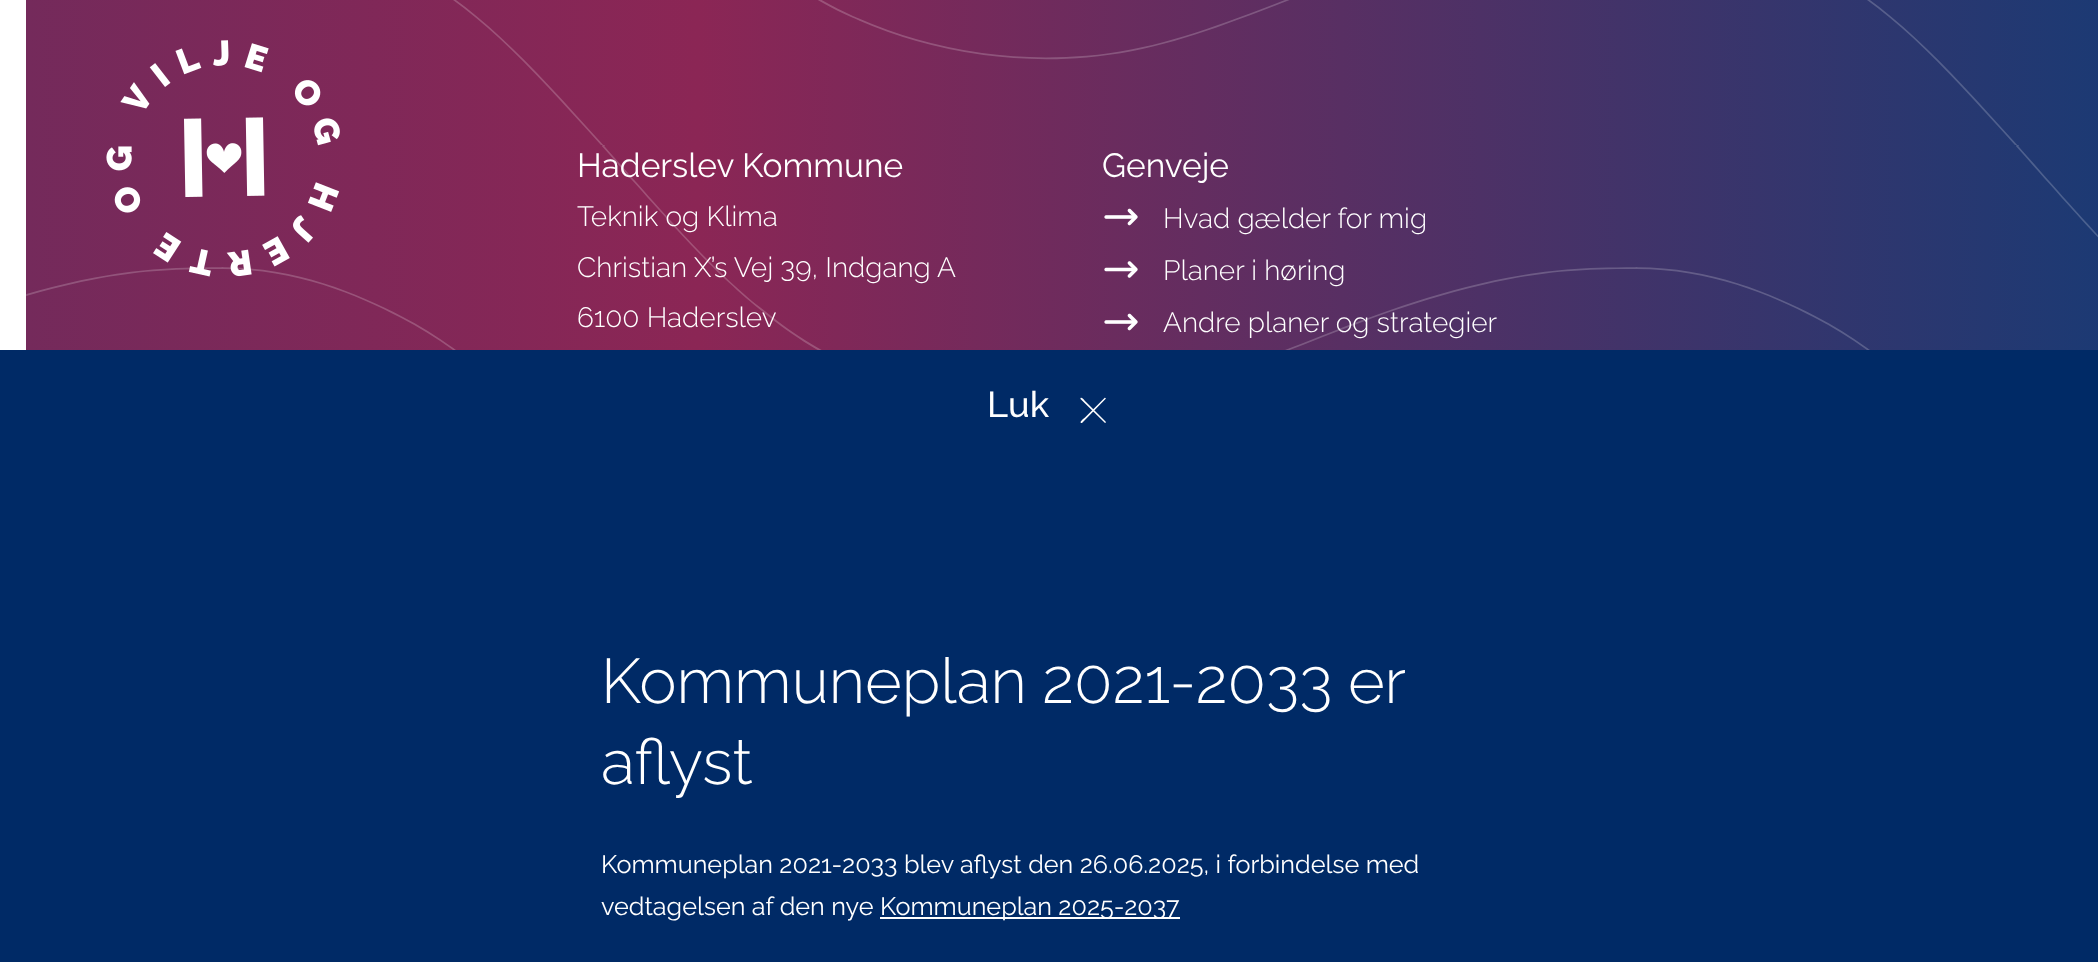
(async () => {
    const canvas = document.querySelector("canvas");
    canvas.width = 2098;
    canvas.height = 962;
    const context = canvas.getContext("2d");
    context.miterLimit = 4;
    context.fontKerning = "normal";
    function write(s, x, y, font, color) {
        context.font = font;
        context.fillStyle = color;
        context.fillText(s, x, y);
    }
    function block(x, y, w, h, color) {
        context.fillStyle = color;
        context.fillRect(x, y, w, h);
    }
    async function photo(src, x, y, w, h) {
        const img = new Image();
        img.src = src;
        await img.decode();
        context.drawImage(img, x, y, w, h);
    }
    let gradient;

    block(0, 0, 2098, 962, "rgb(255, 255, 255)");
    gradient = context.createLinearGradient(26, 379, 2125, 379);
    gradient.addColorStop(0, "rgb(116, 42, 91)");
    gradient.addColorStop(0.32, "rgb(139, 38, 85)");
    gradient.addColorStop(1, "rgb(26, 58, 116)");
    gradient.addColorStop(1, "rgb(255, 255, 255)");
    context.fillStyle = gradient;
    context.fillRect(26, 0, 2072, 350);
    await photo("media/2.png", 106, 40, 234, 237);
    write("Haderslev Kommune", 577, 177, "33.5px Raleway", "rgb(255, 255, 255)");
    write("Teknik og Klima", 577, 226, "300 28px Raleway", "rgb(255, 255, 255)");
    write("Christian X’s Vej 39, Indgang A", 577, 277, "300 28px Raleway", "rgb(255, 255, 255)");
    write("6100 Haderslev", 577, 327, "300 28px Raleway", "rgb(255, 255, 255)");
    write("Genveje", 1102, 177, "33.5px Raleway", "rgb(255, 255, 255)");
    write("Hvad gælder for mig", 1163, 228, "300 28px Raleway", "rgb(255, 255, 255)");
    write("Planer i høring", 1163, 280, "300 28px Raleway", "rgb(255, 255, 255)");
    write("Andre planer og strategier", 1163, 332, "300 28px Raleway", "rgb(255, 255, 255)");
    await photo("media/1.png", 26, 0, 2072, 350);
    await photo("media/3.png", 1104, 208, 34, 18);
    await photo("media/4.png", 1104, 261, 34, 17);
    await photo("media/3.png", 1104, 313, 34, 18);
    block(0, 350, 2098, 612, "rgb(0, 42, 102)");
    write("Luk", 987, 417, "500 36px Raleway", "rgb(255, 255, 255)");
    context.beginPath();
    context.moveTo(1104.5, 422.5);
    context.lineTo(1080.5, 399);
    context.lineTo(1080.5, 398);
    context.bezierCurveTo(1082, 396.5, 1084, 400, 1086, 402);
    context.lineTo(1105.5, 421.5);
    context.bezierCurveTo(1106.5, 422.5, 1105, 423.5, 1104.5, 422.5);
    context.closePath();
    context.fill();
    context.beginPath();
    context.moveTo(1105.5, 399);
    context.lineTo(1082, 423);
    context.lineTo(1081, 423);
    context.bezierCurveTo(1079.5, 422, 1082.5, 419.5, 1085, 417.5);
    context.lineTo(1104.5, 398);
    context.bezierCurveTo(1105, 397, 1106.5, 398.5, 1105.5, 399);
    context.closePath();
    context.fill();
    context.wordSpacing = "-1px";
    write("Kommuneplan 2021-2033 er", 601, 703, "300 63px Raleway", "rgb(255, 255, 255)");
    context.wordSpacing = "0px";
    write("aflyst", 601, 784, "300 63px Raleway", "rgb(255, 255, 255)");
    write("Kommuneplan 2021-2033 blev aflyst den 26.06.2025, i forbindelse med", 601, 873, "25.2px Raleway", "rgb(255, 255, 255)");
    write("vedtagelsen af den nye", 601, 915, "25.2px Raleway", "rgb(255, 255, 255)");
    block(880, 917, 300, 2, "rgb(255, 255, 255)");
    write("Kommuneplan 2025-2037", 880, 915, "25.2px Raleway", "rgb(255, 255, 255)");
})();
